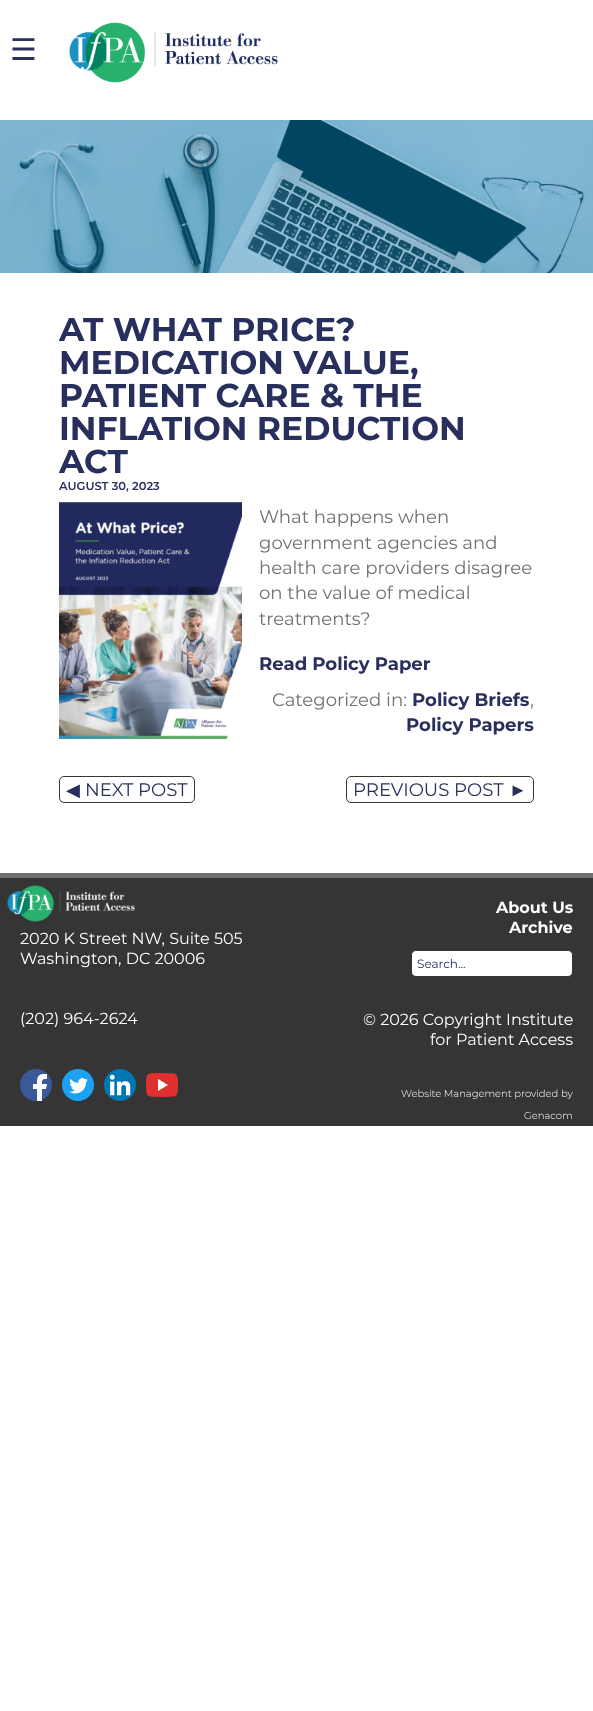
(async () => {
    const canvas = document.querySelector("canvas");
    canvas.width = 593;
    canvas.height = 1711;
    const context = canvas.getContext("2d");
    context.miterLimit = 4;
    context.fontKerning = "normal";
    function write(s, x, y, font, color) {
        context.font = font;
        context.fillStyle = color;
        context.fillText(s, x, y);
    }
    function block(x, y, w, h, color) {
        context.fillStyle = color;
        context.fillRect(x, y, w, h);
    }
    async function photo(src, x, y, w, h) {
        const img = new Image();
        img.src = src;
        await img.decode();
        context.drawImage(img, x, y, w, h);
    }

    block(0, 0, 593, 1711, "rgb(255, 255, 255)");
    write("☰", 10, 60, "30px DejaVu Sans", "rgb(40, 47, 93)");
    await photo("media/1.png", 69, 22, 209, 61);
    await photo("media/2.png", 0, 120, 593, 153);
    write("AT WHAT PRICE?", 59, 341, "bold 33px Montserrat", "rgb(40, 47, 93)");
    write("MEDICATION VALUE,", 59, 374, "bold 33px Montserrat", "rgb(40, 47, 93)");
    write("PATIENT CARE & THE", 59, 407, "bold 33px Montserrat", "rgb(40, 47, 93)");
    write("INFLATION REDUCTION", 59, 440, "bold 33px Montserrat", "rgb(40, 47, 93)");
    write("ACT", 59, 473, "bold 33px Montserrat", "rgb(40, 47, 93)");
    write("AUGUST 30, 2023", 59, 490, "600 11.5px Montserrat", "rgb(40, 47, 93)");
    await photo("media/3.png", 59, 502, 183, 237);
    write("What happens when", 259, 523, "18.1px Montserrat", "rgb(112, 112, 112)");
    write("government agencies and", 259, 549, "18.1px Montserrat", "rgb(112, 112, 112)");
    write("health care providers disagree", 259, 574, "18.1px Montserrat", "rgb(112, 112, 112)");
    write("on the value of medical", 259, 599, "18.1px Montserrat", "rgb(112, 112, 112)");
    write("treatments?", 259, 625, "18.1px Montserrat", "rgb(112, 112, 112)");
    write("Read Policy Paper", 259, 670, "bold 18.1px Montserrat", "rgb(40, 47, 93)");
    write("Categorized in:", 272, 706, "18.1px Montserrat", "rgb(112, 112, 112)");
    write("Policy Briefs", 412, 706, "bold 18.1px Montserrat", "rgb(40, 47, 93)");
    write(",", 530, 706, "18.1px Montserrat", "rgb(112, 112, 112)");
    write("Policy Papers", 406, 731, "bold 18.1px Montserrat", "rgb(40, 47, 93)");
    context.beginPath();
    context.roundRect(59.5, 776.5, 135, 26, 4.5);
    context.strokeStyle = "rgb(53, 53, 53)";
    context.stroke();
    write("◀", 66, 796, "18.1px DejaVu Sans", "rgb(40, 47, 93)");
    write("NEXT POST", 85, 796, "18.1px Montserrat", "rgb(40, 47, 93)");
    context.beginPath();
    context.roundRect(346.5, 776.5, 187, 26, 4.5);
    context.stroke();
    write("PREVIOUS POST", 353, 796, "18.1px Montserrat", "rgb(40, 47, 93)");
    write("►", 509, 796, "18.1px Liberation Sans", "rgb(40, 47, 93)");
    block(0, 873, 593, 5, "rgb(112, 112, 112)");
    block(0, 878, 593, 248, "rgb(53, 53, 53)");
    await photo("media/4.png", 7, 885, 129, 37);
    write("2020 K Street NW, Suite 505", 20, 944, "16px Montserrat", "rgb(255, 255, 255)");
    write("Washington, DC 20006", 20, 964, "16px Montserrat", "rgb(255, 255, 255)");
    write("(202) 964-2624", 20, 1024, "16px Montserrat", "rgb(255, 255, 255)");
    await photo("media/5.png", 20, 1069, 32, 32);
    await photo("media/6.png", 62, 1069, 32, 32);
    await photo("media/7.png", 104, 1069, 32, 32);
    await photo("media/8.png", 146, 1073, 32, 24);
    write("About Us", 496, 913, "bold 16px Montserrat", "rgb(255, 255, 255)");
    write("Archive", 509, 933, "bold 16px Montserrat", "rgb(255, 255, 255)");
    context.beginPath();
    context.roundRect(411.5, 950.5, 161, 26, 4.5);
    context.fill();
    context.stroke();
    write("Search...", 417, 968, "12px Montserrat", "rgb(40, 47, 93)");
    write("© 2026 Copyright Institute", 363, 1025, "16px Montserrat", "rgb(255, 255, 255)");
    write("for Patient Access", 430, 1045, "16px Montserrat", "rgb(255, 255, 255)");
    write("Website Management provided by", 401, 1097, "300 10px Montserrat", "rgb(255, 255, 255)");
    write("Genacom", 524, 1119, "300 10px Montserrat", "rgb(255, 255, 255)");
})();
